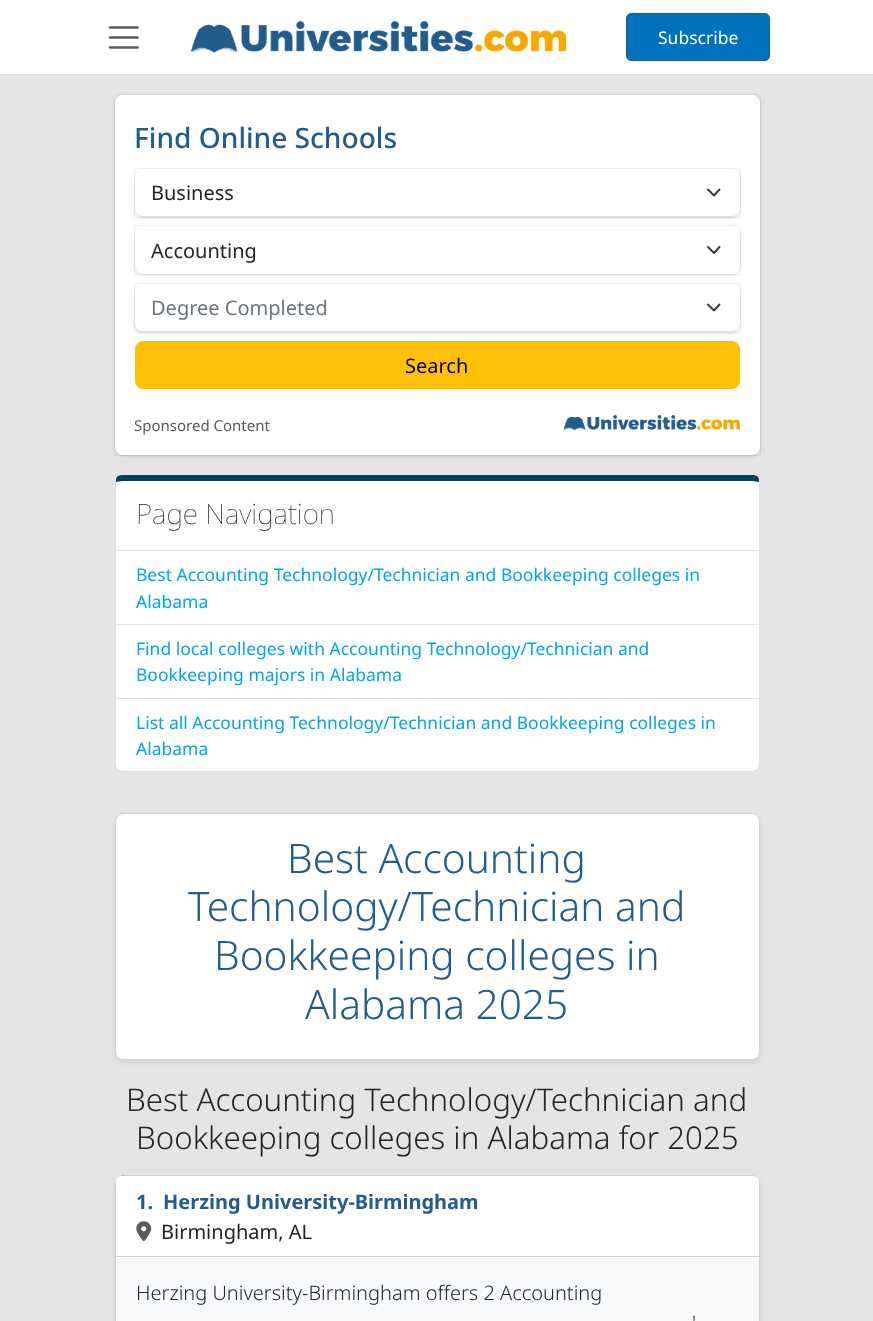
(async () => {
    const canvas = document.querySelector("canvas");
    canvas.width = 873;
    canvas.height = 1321;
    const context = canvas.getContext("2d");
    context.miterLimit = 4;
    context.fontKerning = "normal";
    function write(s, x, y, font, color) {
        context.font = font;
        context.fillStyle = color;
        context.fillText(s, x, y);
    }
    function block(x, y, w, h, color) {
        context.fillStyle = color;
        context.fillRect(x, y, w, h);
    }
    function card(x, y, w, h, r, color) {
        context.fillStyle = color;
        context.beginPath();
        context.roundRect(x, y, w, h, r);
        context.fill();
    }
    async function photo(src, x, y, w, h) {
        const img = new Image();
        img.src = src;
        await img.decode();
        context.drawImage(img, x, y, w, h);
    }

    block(0, 0, 873, 1321, "rgb(229, 229, 229)");
    block(0, 0, 873, 74, "rgb(255, 255, 255)");
    block(0, 74, 873, 1, "rgb(222, 226, 230)");
    context.beginPath();
    context.moveTo(110, 27.5);
    context.lineTo(137.5, 27.5);
    context.moveTo(110, 37.5);
    context.lineTo(137.5, 37.5);
    context.moveTo(110, 47.5);
    context.lineTo(137.5, 47.5);
    context.strokeStyle = "rgb(89, 92, 95)";
    context.lineWidth = 2.5;
    context.lineCap = "round";
    context.stroke();
    await photo("media/1.png", 191, 21, 376, 32);
    context.fillStyle = "rgb(0, 113, 188)";
    context.beginPath();
    context.roundRect(626.5, 13.5, 143, 47, 4.5);
    context.fill();
    context.strokeStyle = "rgb(34, 92, 140)";
    context.lineWidth = 1;
    context.stroke();
    write("Subscribe", 658, 44, "17.5px Noto Sans", "rgb(255, 255, 255)");
    context.fillStyle = "rgba(0, 0, 0, 0.06)";
    context.filter = "blur(1px)";
    context.beginPath();
    context.roundRect(115, 96, 645, 360, 8);
    context.fill();
    context.filter = "none";
    context.fillStyle = "rgba(0, 0, 0, 0.1)";
    context.filter = "blur(2px)";
    context.beginPath();
    context.roundRect(115, 96, 645, 360, 8);
    context.fill();
    context.filter = "none";
    context.strokeStyle = "rgba(17, 24, 39, 0.05)";
    context.strokeRect(114.5, 94.5, 646, 361);
    card(115, 95, 645, 360, 8, "rgb(255, 255, 255)");
    write("Find Online Schools", 134, 148, "500 28.1px Noto Sans", "rgb(34, 92, 140)");
    context.fillStyle = "rgba(0, 0, 0, 0.06)";
    context.filter = "blur(1px)";
    context.beginPath();
    context.roundRect(135, 170, 605, 48, 8);
    context.fill();
    context.filter = "none";
    context.fillStyle = "rgba(0, 0, 0, 0.1)";
    context.filter = "blur(2px)";
    context.beginPath();
    context.roundRect(135, 170, 605, 48, 8);
    context.fill();
    context.filter = "none";
    context.strokeRect(134.5, 168.5, 606, 49);
    card(135, 169, 605, 47, 8, "rgb(255, 255, 255)");
    context.beginPath();
    context.moveTo(708, 189.5);
    context.lineTo(714, 195.5);
    context.lineTo(719.5, 189.5);
    context.strokeStyle = "rgb(52, 58, 64)";
    context.lineWidth = 1.9;
    context.lineJoin = "round";
    context.stroke();
    write("Business", 151, 200, "20px Noto Sans", "rgb(33, 37, 41)");
    context.fillStyle = "rgba(0, 0, 0, 0.06)";
    context.filter = "blur(1px)";
    context.beginPath();
    context.roundRect(135, 228, 605, 47, 8);
    context.fill();
    context.filter = "none";
    context.fillStyle = "rgba(0, 0, 0, 0.1)";
    context.filter = "blur(2px)";
    context.beginPath();
    context.roundRect(135, 228, 605, 47, 8);
    context.fill();
    context.filter = "none";
    context.strokeStyle = "rgba(17, 24, 39, 0.05)";
    context.lineWidth = 1;
    context.lineJoin = "miter";
    context.strokeRect(134.5, 225.5, 606, 49);
    card(135, 226, 605, 48, 8, "rgb(255, 255, 255)");
    context.beginPath();
    context.moveTo(708, 247);
    context.lineTo(714, 253);
    context.lineTo(719.5, 247);
    context.strokeStyle = "rgb(52, 58, 64)";
    context.lineWidth = 1.9;
    context.lineJoin = "round";
    context.stroke();
    write("Accounting", 151, 258, "20px Noto Sans", "rgb(33, 37, 41)");
    context.fillStyle = "rgba(0, 0, 0, 0.06)";
    context.filter = "blur(1px)";
    context.beginPath();
    context.roundRect(135, 285, 605, 48, 8);
    context.fill();
    context.filter = "none";
    context.fillStyle = "rgba(0, 0, 0, 0.1)";
    context.filter = "blur(2px)";
    context.beginPath();
    context.roundRect(135, 285, 605, 48, 8);
    context.fill();
    context.filter = "none";
    context.strokeStyle = "rgba(17, 24, 39, 0.05)";
    context.lineWidth = 1;
    context.lineJoin = "miter";
    context.strokeRect(134.5, 283.5, 606, 49);
    card(135, 284, 605, 47, 8, "rgb(255, 255, 255)");
    context.beginPath();
    context.moveTo(708, 304.5);
    context.lineTo(714, 310.5);
    context.lineTo(719.5, 304.5);
    context.strokeStyle = "rgb(52, 58, 64)";
    context.lineWidth = 1.9;
    context.lineJoin = "round";
    context.stroke();
    write("Degree Completed", 151, 315, "20px Noto Sans", "rgb(108, 117, 125)");
    context.fillStyle = "rgb(255, 193, 7)";
    context.beginPath();
    context.roundRect(135.5, 341.5, 604, 47, 7.5);
    context.fill();
    context.strokeStyle = "rgb(255, 193, 7)";
    context.lineWidth = 1;
    context.lineJoin = "miter";
    context.stroke();
    write("Search", 405, 373, "20px Noto Sans", "rgb(0, 0, 0)");
    write("Sponsored Content", 134, 431, "15px Noto Sans", "rgb(89, 92, 95)");
    await photo("media/2.png", 563, 415, 177, 15);
    context.fillStyle = "rgb(255, 255, 255)";
    context.beginPath();
    context.moveTo(122, 481);
    context.lineTo(752, 481);
    context.bezierCurveTo(756, 481, 759, 482, 759, 482);
    context.lineTo(759, 550);
    context.lineTo(116, 550);
    context.lineTo(116, 482);
    context.bezierCurveTo(116, 482, 119, 481, 122, 481);
    context.closePath();
    context.fill();
    context.fillStyle = "rgb(0, 65, 92)";
    context.beginPath();
    context.moveTo(122, 475);
    context.bezierCurveTo(119, 475, 117, 476, 116, 479);
    context.lineTo(116, 482);
    context.lineTo(122, 481);
    context.lineTo(752, 481);
    context.lineTo(759, 482);
    context.lineTo(759, 479);
    context.bezierCurveTo(758, 476, 756, 475, 752, 475);
    context.closePath();
    context.fill();
    context.fillStyle = "rgb(222, 226, 230)";
    context.beginPath();
    context.moveTo(760, 551);
    context.lineTo(760, 482);
    context.lineTo(759, 479);
    context.lineTo(759, 482);
    context.lineTo(759, 550);
    context.closePath();
    context.fill();
    context.beginPath();
    context.moveTo(760, 551);
    context.lineTo(115, 551);
    context.lineTo(116, 550);
    context.lineTo(759, 550);
    context.closePath();
    context.fill();
    context.beginPath();
    context.moveTo(115, 482);
    context.lineTo(115, 551);
    context.lineTo(116, 550);
    context.lineTo(116, 482);
    context.lineTo(116, 479);
    context.closePath();
    context.fill();
    write("Page Navigation", 136, 524, "100 28.1px Noto Sans", "rgb(33, 37, 41)");
    block(116, 551, 643, 73, "rgb(255, 255, 255)");
    block(759, 551, 1, 148, "rgb(222, 226, 230)");
    block(115, 624, 645, 1, "rgb(222, 226, 230)");
    block(115, 551, 1, 74, "rgb(222, 226, 230)");
    write("Best Accounting Technology/Technician and Bookkeeping colleges in", 136, 581, "17.5px Noto Sans", "rgb(0, 164, 243)");
    write("Alabama", 136, 608, "17.5px Noto Sans", "rgb(0, 164, 243)");
    block(116, 625, 643, 73, "rgb(255, 255, 255)");
    block(115, 698, 645, 1, "rgb(222, 226, 230)");
    block(115, 625, 1, 74, "rgb(222, 226, 230)");
    write("Find local colleges with Accounting Technology/Technician and", 136, 655, "17.5px Noto Sans", "rgb(0, 164, 243)");
    write("Bookkeeping majors in Alabama", 136, 681, "17.5px Noto Sans", "rgb(0, 164, 243)");
    context.fillStyle = "rgb(255, 255, 255)";
    context.beginPath();
    context.roundRect(116, 699, 643, 72, [0, 0, 6, 6]);
    context.fill();
    context.fillStyle = "rgb(222, 226, 230)";
    context.beginPath();
    context.moveTo(115, 699);
    context.lineTo(760, 699);
    context.lineTo(760, 765);
    context.bezierCurveTo(760, 769, 757, 772, 752, 772);
    context.lineTo(122, 772);
    context.bezierCurveTo(118, 772, 115, 769, 115, 765);
    context.closePath();
    context.moveTo(116, 699);
    context.lineTo(759, 699);
    context.lineTo(759, 765);
    context.bezierCurveTo(759, 768, 756, 771, 752, 771);
    context.lineTo(122, 771);
    context.bezierCurveTo(119, 771, 116, 768, 116, 765);
    context.closePath();
    context.fill("evenodd");
    write("List all Accounting Technology/Technician and Bookkeeping colleges in", 136, 729, "17.5px Noto Sans", "rgb(0, 164, 243)");
    write("Alabama", 136, 755, "17.5px Noto Sans", "rgb(0, 164, 243)");
    context.fillStyle = "rgba(0, 0, 0, 0.07)";
    context.filter = "blur(2.5px)";
    context.beginPath();
    context.roundRect(115, 815, 645, 248, 8);
    context.fill();
    context.filter = "none";
    card(115, 813, 645, 247, 8, "rgb(255, 255, 255)");
    context.beginPath();
    context.roundRect(115.5, 813.5, 644, 246, 7.5);
    context.strokeStyle = "rgba(0, 0, 0, 0.18)";
    context.stroke();
    write("Best Accounting", 287, 873, "300 40.6px Noto Sans", "rgb(34, 92, 140)");
    write("Technology/Technician and", 188, 921, "300 40.6px Noto Sans", "rgb(34, 92, 140)");
    write("Bookkeeping colleges in", 214, 970, "300 40.6px Noto Sans", "rgb(34, 92, 140)");
    write("Alabama 2025", 305, 1019, "300 40.6px Noto Sans", "rgb(34, 92, 140)");
    write("Best Accounting Technology/Technician and", 126, 1111, "300 31.25px Noto Sans", "rgb(33, 37, 41)");
    write("Bookkeeping colleges in Alabama for 2025", 136, 1149, "300 31.25px Noto Sans", "rgb(33, 37, 41)");
    context.fillStyle = "rgba(0, 0, 0, 0.07)";
    context.filter = "blur(2.5px)";
    context.beginPath();
    context.roundRect(115, 1178, 645, 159, 8);
    context.fill();
    context.filter = "none";
    card(115, 1175, 645, 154, 8, "rgb(255, 255, 255)");
    context.beginPath();
    context.roundRect(115.5, 1175.5, 644, 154, 7.5);
    context.stroke();
    context.beginPath();
    context.roundRect(116, 1176, 643, 82, [6, 6, 0, 0]);
    context.fill();
    block(116, 1256, 643, 1, "rgb(210, 210, 210)");
    write("1.", 136, 1209, "bold 20px Noto Sans", "rgb(34, 92, 140)");
    write("Herzing University-Birmingham", 163, 1209, "bold 20px Noto Sans", "rgb(34, 92, 140)");
    await photo("media/3.png", 136, 1221, 16, 21);
    write("Birmingham, AL", 161, 1239, "20px Noto Sans", "rgb(33, 37, 41)");
    block(116, 1258, 643, 63, "rgb(248, 249, 250)");
    write("Herzing University-Birmingham offers 2 Accounting", 136, 1300, "300 20px Noto Sans", "rgb(33, 37, 41)");
    write("'", 692, 1330, "300 20px Noto Sans", "rgb(33, 37, 41)");
})();
